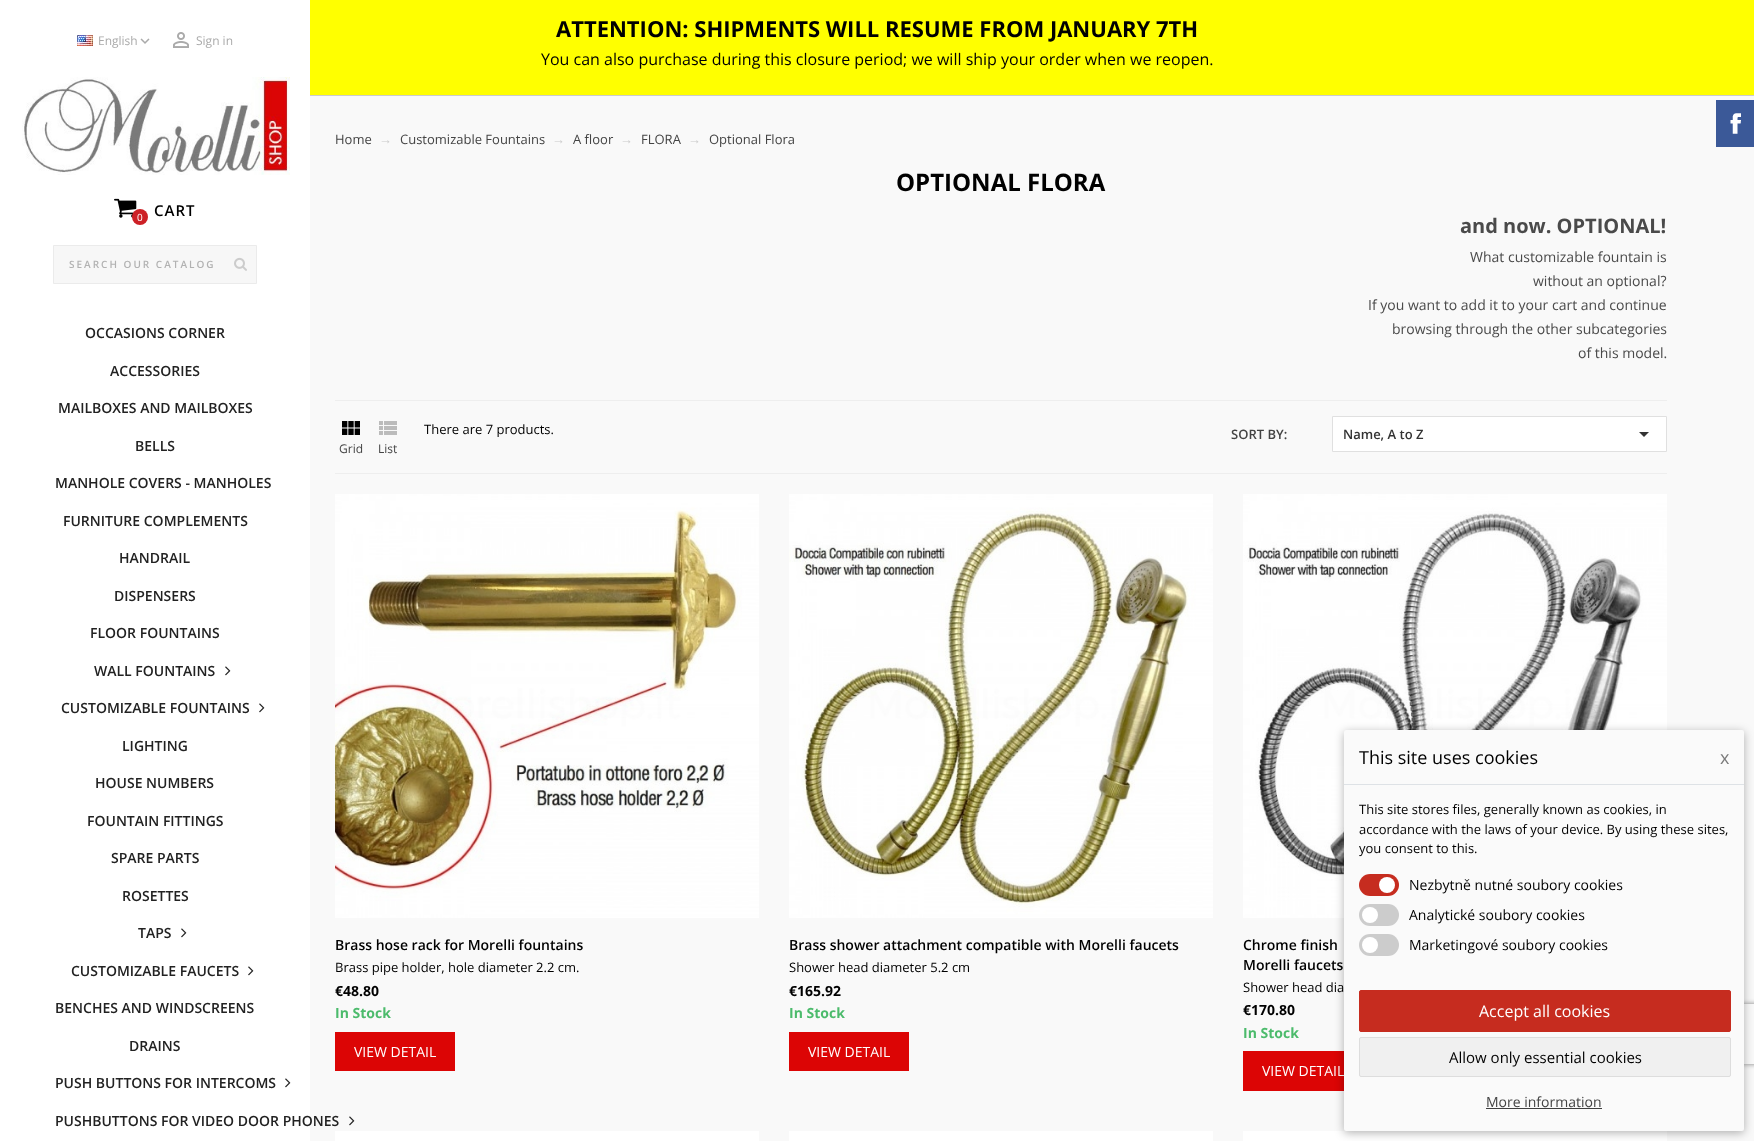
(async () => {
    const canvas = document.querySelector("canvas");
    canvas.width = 1754;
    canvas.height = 1141;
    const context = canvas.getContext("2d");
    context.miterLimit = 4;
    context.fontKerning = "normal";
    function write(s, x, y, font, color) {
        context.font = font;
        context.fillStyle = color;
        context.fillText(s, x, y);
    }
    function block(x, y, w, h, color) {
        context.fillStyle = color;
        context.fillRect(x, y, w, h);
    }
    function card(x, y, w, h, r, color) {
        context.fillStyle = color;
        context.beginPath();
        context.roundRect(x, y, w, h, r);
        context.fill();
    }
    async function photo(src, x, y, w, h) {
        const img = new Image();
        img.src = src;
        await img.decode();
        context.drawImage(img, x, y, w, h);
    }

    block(0, 0, 1754, 1141, "rgb(255, 255, 255)");
    block(310, 0, 1444, 95, "rgb(255, 255, 0)");
    block(310, 95, 1444, 1, "rgb(204, 204, 204)");
    write("ATTENTION: SHIPMENTS WILL RESUME FROM JANUARY 7TH", 556, 37, "bold 22px Open Sans", "rgb(0, 0, 0)");
    write("You can also purchase during this closure period; we will ship your order when we reopen.", 541, 65, "16px Open Sans", "rgb(0, 0, 0)");
    await photo("media/1.png", 77, 35, 16, 11);
    write("English", 98, 45, "12px Open Sans", "rgb(170, 170, 170)");
    await photo("media/2.png", 140, 38, 10, 6);
    await photo("media/3.png", 173, 32, 16, 16);
    write("Sign in", 196, 45, "12px Open Sans", "rgb(170, 170, 170)");
    await photo("media/4.png", 22, 77, 268, 98);
    await photo("media/5.png", 114, 198, 23, 20);
    context.fillStyle = "rgb(205, 32, 38)";
    context.beginPath();
    context.arc(140, 217, 8, 0, Math.PI * 2);
    context.fill();
    write("0", 137, 221, "10px Open Sans", "rgb(255, 255, 255)");
    context.letterSpacing = "1px";
    write("CART", 154, 216, "600 15px Open Sans", "rgb(0, 0, 0)");
    context.fillStyle = "rgb(247, 247, 247)";
    context.beginPath();
    context.rect(53.5, 245.5, 203, 38);
    context.fill();
    context.strokeStyle = "rgb(235, 235, 235)";
    context.stroke();
    context.letterSpacing = "2px";
    write("SEARCH OUR CATALOG", 69, 268, "600 10px Open Sans", "rgb(178, 178, 178)");
    await photo("media/6.png", 234, 257, 13, 14);
    context.letterSpacing = "0px";
    write("OCCASIONS CORNER", 85, 338, "600 14px Open Sans", "rgb(34, 34, 34)");
    write("ACCESSORIES", 110, 376, "600 14px Open Sans", "rgb(34, 34, 34)");
    write("MAILBOXES AND MAILBOXES", 58, 413, "600 14px Open Sans", "rgb(34, 34, 34)");
    write("BELLS", 135, 451, "600 14px Open Sans", "rgb(34, 34, 34)");
    write("MANHOLE COVERS - MANHOLES", 55, 488, "600 14px Open Sans", "rgb(34, 34, 34)");
    write("FURNITURE COMPLEMENTS", 63, 526, "600 14px Open Sans", "rgb(34, 34, 34)");
    write("HANDRAIL", 119, 563, "600 14px Open Sans", "rgb(34, 34, 34)");
    write("DISPENSERS", 114, 601, "600 14px Open Sans", "rgb(34, 34, 34)");
    write("FLOOR FOUNTAINS", 90, 638, "600 14px Open Sans", "rgb(34, 34, 34)");
    write("WALL FOUNTAINS", 94, 676, "600 14px Open Sans", "rgb(34, 34, 34)");
    await photo("media/7.png", 225, 666, 6, 10);
    write("CUSTOMIZABLE FOUNTAINS", 61, 713, "600 14px Open Sans", "rgb(34, 34, 34)");
    await photo("media/7.png", 259, 703, 6, 10);
    write("LIGHTING", 122, 751, "600 14px Open Sans", "rgb(34, 34, 34)");
    write("HOUSE NUMBERS", 95, 788, "600 14px Open Sans", "rgb(34, 34, 34)");
    write("FOUNTAIN FITTINGS", 87, 826, "600 14px Open Sans", "rgb(34, 34, 34)");
    write("SPARE PARTS", 111, 863, "600 14px Open Sans", "rgb(34, 34, 34)");
    write("ROSETTES", 122, 901, "600 14px Open Sans", "rgb(34, 34, 34)");
    write("TAPS", 138, 938, "600 14px Open Sans", "rgb(34, 34, 34)");
    await photo("media/7.png", 181, 928, 6, 10);
    write("CUSTOMIZABLE FAUCETS", 71, 976, "600 14px Open Sans", "rgb(34, 34, 34)");
    await photo("media/7.png", 248, 966, 6, 10);
    write("BENCHES AND WINDSCREENS", 55, 1013, "600 14px Open Sans", "rgb(34, 34, 34)");
    write("DRAINS", 129, 1051, "600 14px Open Sans", "rgb(34, 34, 34)");
    write("PUSH BUTTONS FOR INTERCOMS", 55, 1088, "600 14px Open Sans", "rgb(34, 34, 34)");
    await photo("media/7.png", 285, 1078, 6, 10);
    block(310, 96, 1444, 1045, "rgb(249, 249, 249)");
    write("PUSHBUTTONS FOR VIDEO DOOR PHONES", 55, 1126, "600 14px Open Sans", "rgb(34, 34, 34)");
    await photo("media/8.png", 349, 1116, 6, 10);
    await photo("media/9.png", 1716, 100, 38, 47);
    write("Home", 335, 144, "13px Open Sans", "rgb(68, 68, 68)");
    write("→", 379, 144, "13px Liberation Sans", "rgb(204, 204, 204)");
    write("Customizable Fountains", 400, 144, "13px Open Sans", "rgb(68, 68, 68)");
    write("→", 552, 144, "13px Liberation Sans", "rgb(204, 204, 204)");
    write("A floor", 573, 144, "13px Open Sans", "rgb(68, 68, 68)");
    write("→", 620, 144, "13px Liberation Sans", "rgb(204, 204, 204)");
    write("FLORA", 641, 144, "13px Open Sans", "rgb(68, 68, 68)");
    write("→", 688, 144, "13px Liberation Sans", "rgb(204, 204, 204)");
    write("Optional Flora", 709, 144, "13px Open Sans", "rgb(68, 68, 68)");
    write("OPTIONAL FLORA", 896, 191, "bold 24px Open Sans", "rgb(0, 0, 0)");
    write("and now. OPTIONAL!", 1460, 233, "bold 20px Open Sans", "rgb(74, 74, 74)");
    write("What customizable fountain is", 1470, 262, "14px Open Sans", "rgb(74, 74, 74)");
    write("without an optional?", 1533, 286, "14px Open Sans", "rgb(74, 74, 74)");
    write("If you want to add it to your cart and continue", 1368, 310, "14px Open Sans", "rgb(74, 74, 74)");
    write("browsing through the other subcategories", 1392, 334, "14px Open Sans", "rgb(74, 74, 74)");
    write("of this model.", 1578, 358, "14px Open Sans", "rgb(74, 74, 74)");
    block(335, 400, 1332, 1, "rgb(238, 238, 238)");
    block(335, 473, 1332, 1, "rgb(238, 238, 238)");
    write("There are 7 products.", 424, 434, "13px Open Sans", "rgb(0, 0, 0)");
    await photo("media/10.png", 342, 421, 18, 14);
    write("Grid", 339, 453, "12px Open Sans", "rgb(68, 68, 68)");
    await photo("media/11.png", 379, 421, 18, 14);
    write("List", 378, 453, "12px Open Sans", "rgb(68, 68, 68)");
    write("SORT BY:", 1231, 439, "600 13px Open Sans", "rgb(68, 68, 68)");
    context.fillStyle = "rgb(255, 255, 255)";
    context.beginPath();
    context.rect(1332.5, 416.5, 334, 35);
    context.fill();
    context.strokeStyle = "rgb(224, 224, 224)";
    context.stroke();
    write("Name, A to Z", 1343, 439, "600 13px Open Sans", "rgb(51, 51, 51)");
    context.beginPath();
    context.moveTo(1639, 432);
    context.lineTo(1649, 432);
    context.lineTo(1644, 437);
    context.closePath();
    context.fill();
    await photo("media/12.png", 335, 494, 424, 424);
    write("Brass hose rack for Morelli fountains", 335, 950, "600 14px Open Sans", "rgb(0, 0, 0)");
    write("Brass pipe holder, hole diameter 2.2 cm.", 335, 972, "13px Open Sans", "rgb(0, 0, 0)");
    write("€48.80", 335, 996, "bold 14px Open Sans", "rgb(0, 0, 0)");
    write("In Stock", 335, 1018, "bold 14px Open Sans", "rgb(76, 187, 108)");
    block(335, 1032, 120, 39, "rgb(220, 5, 5)");
    write("VIEW DETAIL", 354, 1057, "14px Open Sans", "rgb(255, 255, 255)");
    await photo("media/13.png", 789, 494, 424, 424);
    write("Brass shower attachment compatible with Morelli faucets", 789, 950, "600 14px Open Sans", "rgb(0, 0, 0)");
    write("Shower head diameter 5.2 cm", 789, 972, "13px Open Sans", "rgb(0, 0, 0)");
    write("€165.92", 789, 996, "bold 14px Open Sans", "rgb(0, 0, 0)");
    write("In Stock", 789, 1018, "bold 14px Open Sans", "rgb(76, 187, 108)");
    block(789, 1032, 120, 39, "rgb(220, 5, 5)");
    write("VIEW DETAIL", 808, 1057, "14px Open Sans", "rgb(255, 255, 255)");
    await photo("media/14.png", 1243, 494, 424, 424);
    write("Chrome finish", 1243, 950, "600 14px Open Sans", "rgb(0, 0, 0)");
    write("Morelli faucets", 1243, 970, "600 14px Open Sans", "rgb(0, 0, 0)");
    write("Shower head dia", 1243, 992, "13px Open Sans", "rgb(0, 0, 0)");
    write("€170.80", 1243, 1015, "bold 14px Open Sans", "rgb(0, 0, 0)");
    write("In Stock", 1243, 1038, "bold 14px Open Sans", "rgb(76, 187, 108)");
    block(1243, 1051, 101, 40, "rgb(220, 5, 5)");
    write("VIEW DETAIL", 1262, 1076, "14px Open Sans", "rgb(255, 255, 255)");
    block(335, 1131, 424, 10, "rgb(255, 255, 255)");
    block(789, 1131, 424, 10, "rgb(255, 255, 255)");
    block(1243, 1131, 424, 10, "rgb(255, 255, 255)");
    context.fillStyle = "rgba(0, 0, 0, 0.3)";
    context.filter = "blur(5px)";
    context.beginPath();
    context.roundRect(1344, 732, 400, 401, 2);
    context.fill();
    context.filter = "none";
    context.save();
    context.beginPath();
    context.moveTo(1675, 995);
    context.lineTo(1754, 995);
    context.lineTo(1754, 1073);
    context.lineTo(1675, 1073);
    context.closePath();
    context.moveTo(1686, 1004);
    context.lineTo(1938, 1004);
    context.bezierCurveTo(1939, 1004, 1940, 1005, 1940, 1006);
    context.lineTo(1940, 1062);
    context.bezierCurveTo(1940, 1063, 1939, 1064, 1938, 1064);
    context.lineTo(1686, 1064);
    context.bezierCurveTo(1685, 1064, 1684, 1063, 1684, 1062);
    context.lineTo(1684, 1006);
    context.bezierCurveTo(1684, 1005, 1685, 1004, 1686, 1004);
    context.closePath();
    context.clip("evenodd");
    context.fillStyle = "rgb(128, 128, 128)";
    context.filter = "blur(2.5px)";
    context.beginPath();
    context.roundRect(1684, 1004, 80, 60, 2);
    context.fill();
    context.filter = "none";
    context.restore();
    card(1344, 730, 400, 401, 2, "rgb(250, 250, 250)");
    block(1344, 784, 400, 1, "rgb(222, 226, 230)");
    write("This site uses cookies", 1359, 764, "18px Open Sans", "rgb(0, 0, 0)");
    write("x", 1720, 764, "18px Open Sans", "rgb(122, 122, 122)");
    write("This site stores files, generally known as cookies, in", 1359, 814, "13px Open Sans", "rgb(0, 0, 0)");
    write("accordance with the laws of your device. By using these sites,", 1359, 834, "13px Open Sans", "rgb(0, 0, 0)");
    write("you consent to this.", 1359, 853, "13px Open Sans", "rgb(0, 0, 0)");
    card(1359, 874, 40, 22, 11, "rgb(198, 44, 31)");
    context.fillStyle = "rgb(255, 255, 255)";
    context.beginPath();
    context.arc(1387, 885, 8, 0, Math.PI * 2);
    context.fill();
    write("Nezbytně nutné soubory cookies", 1409, 890, "14px Open Sans", "rgb(0, 0, 0)");
    card(1359, 904, 40, 22, 11, "rgb(204, 204, 204)");
    context.fillStyle = "rgb(255, 255, 255)";
    context.beginPath();
    context.arc(1370, 915, 8, 0, Math.PI * 2);
    context.fill();
    write("Analytické soubory cookies", 1409, 920, "14px Open Sans", "rgb(0, 0, 0)");
    card(1359, 934, 40, 22, 11, "rgb(204, 204, 204)");
    context.fillStyle = "rgb(255, 255, 255)";
    context.beginPath();
    context.arc(1370, 945, 8, 0, Math.PI * 2);
    context.fill();
    write("Marketingové soubory cookies", 1409, 950, "14px Open Sans", "rgb(0, 0, 0)");
    context.fillStyle = "rgb(198, 44, 31)";
    context.beginPath();
    context.roundRect(1359.5, 990.5, 371, 41, 1.5);
    context.fill();
    context.strokeStyle = "rgb(198, 44, 31)";
    context.stroke();
    write("Accept all cookies", 1479, 1017, "16px Open Sans", "rgb(255, 255, 255)");
    context.fillStyle = "rgb(240, 240, 240)";
    context.beginPath();
    context.roundRect(1359.5, 1037.5, 371, 39, 1.5);
    context.fill();
    context.strokeStyle = "rgb(221, 221, 221)";
    context.stroke();
    write("Allow only essential cookies", 1449, 1063, "15px Open Sans", "rgb(0, 0, 0)");
    write("More information", 1486, 1107, "14px Open Sans", "rgb(68, 68, 68)");
    block(1486, 1108, 116, 1, "rgb(63, 63, 63)");
})();
